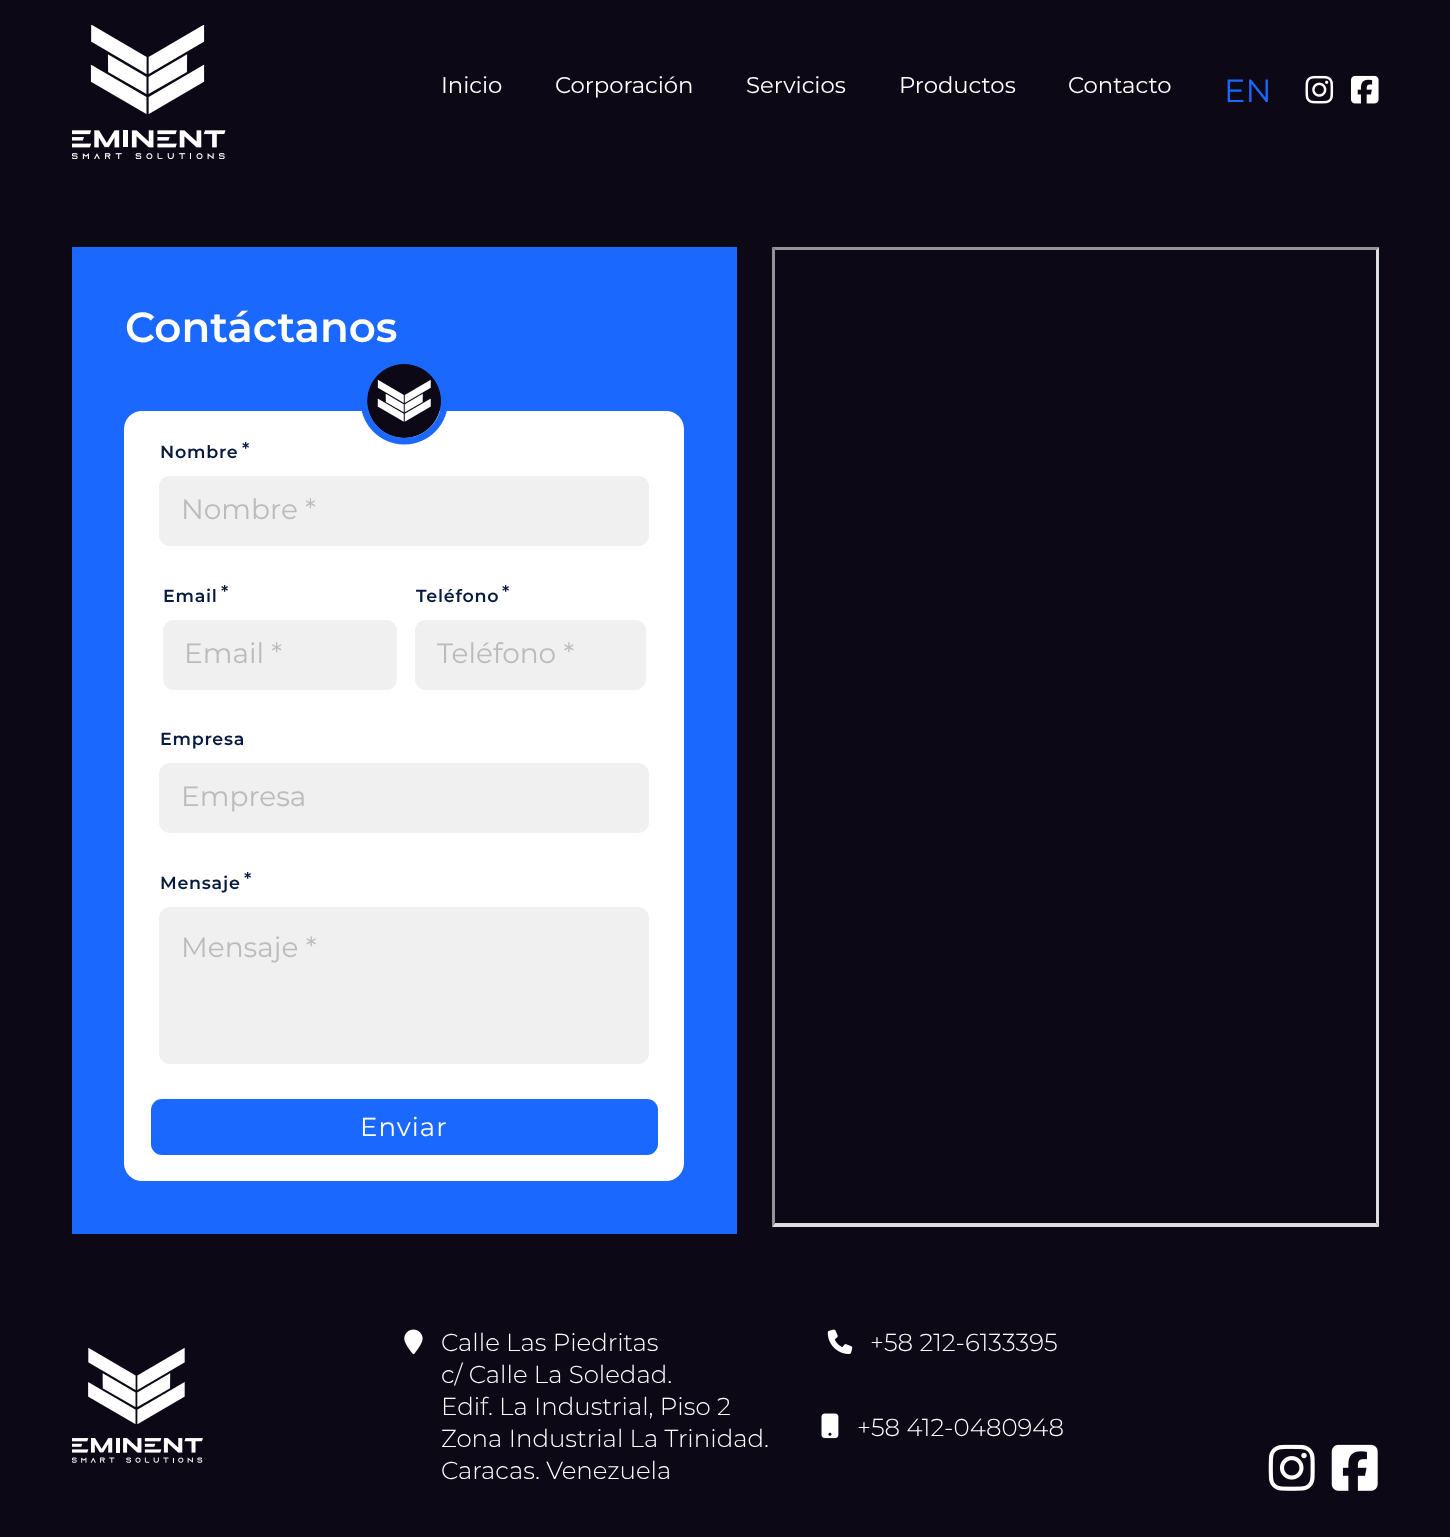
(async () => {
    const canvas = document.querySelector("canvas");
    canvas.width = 1450;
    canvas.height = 1537;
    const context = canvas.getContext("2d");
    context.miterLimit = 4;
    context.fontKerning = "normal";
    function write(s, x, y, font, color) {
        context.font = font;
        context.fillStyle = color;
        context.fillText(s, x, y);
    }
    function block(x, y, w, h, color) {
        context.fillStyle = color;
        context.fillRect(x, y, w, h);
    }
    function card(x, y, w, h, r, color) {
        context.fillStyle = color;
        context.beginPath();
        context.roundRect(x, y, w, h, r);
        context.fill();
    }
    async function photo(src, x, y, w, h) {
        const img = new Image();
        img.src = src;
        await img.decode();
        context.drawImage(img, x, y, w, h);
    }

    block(0, 0, 1450, 1537, "rgb(12, 8, 22)");
    await photo("media/1.png", 72, 25, 154, 134);
    write("Inicio", 441, 93, "22.75px Montserrat", "rgb(255, 255, 255)");
    write("Corporación", 555, 93, "22.75px Montserrat", "rgb(255, 255, 255)");
    write("Servicios", 746, 93, "22.75px Montserrat", "rgb(255, 255, 255)");
    write("Productos", 899, 93, "22.75px Montserrat", "rgb(255, 255, 255)");
    write("Contacto", 1068, 93, "22.75px Montserrat", "rgb(255, 255, 255)");
    write("EN", 1224, 102, "32px Montserrat", "rgb(27, 104, 255)");
    await photo("media/2.png", 1305, 75, 29, 29);
    await photo("media/3.png", 1351, 75, 28, 29);
    block(72, 247, 665, 987, "rgb(27, 104, 255)");
    write("Contáctanos", 125, 342, "600 42px Montserrat", "rgb(255, 255, 255)");
    card(124, 411, 560, 770, 18, "rgb(255, 255, 255)");
    await photo("media/4.png", 361, 364, 86, 81);
    context.letterSpacing = "0.75px";
    write("Nombre", 160, 458, "600 17.5px Montserrat", "rgb(7, 26, 64)");
    write("*", 242, 455, "600 17.5px Montserrat", "rgb(7, 26, 64)");
    card(159, 476, 490, 70, 11, "rgb(240, 240, 240)");
    context.letterSpacing = "0px";
    write("Nombre *", 181, 519, "28px Montserrat", "rgb(187, 187, 187)");
    context.letterSpacing = "0.75px";
    write("Email", 163, 602, "600 17.5px Montserrat", "rgb(7, 26, 64)");
    write("*", 221, 598, "600 17.5px Montserrat", "rgb(7, 26, 64)");
    card(163, 620, 234, 70, 11, "rgb(240, 240, 240)");
    context.letterSpacing = "0px";
    write("Email *", 184, 663, "28px Montserrat", "rgb(187, 187, 187)");
    context.letterSpacing = "0.75px";
    write("Teléfono", 416, 602, "600 17.5px Montserrat", "rgb(7, 26, 64)");
    write("*", 502, 598, "600 17.5px Montserrat", "rgb(7, 26, 64)");
    card(415, 620, 231, 70, 11, "rgb(240, 240, 240)");
    context.letterSpacing = "0px";
    write("Teléfono *", 437, 663, "28px Montserrat", "rgb(187, 187, 187)");
    context.letterSpacing = "0.75px";
    write("Empresa", 160, 745, "600 17.5px Montserrat", "rgb(7, 26, 64)");
    card(159, 763, 490, 70, 11, "rgb(240, 240, 240)");
    context.letterSpacing = "0px";
    write("Empresa", 181, 806, "28px Montserrat", "rgb(187, 187, 187)");
    context.letterSpacing = "0.75px";
    write("Mensaje", 160, 889, "600 17.5px Montserrat", "rgb(7, 26, 64)");
    write("*", 244, 885, "600 17.5px Montserrat", "rgb(7, 26, 64)");
    card(159, 907, 490, 157, 11, "rgb(240, 240, 240)");
    context.letterSpacing = "0px";
    write("Mensaje *", 181, 957, "28px Montserrat", "rgb(187, 187, 187)");
    card(151, 1099, 507, 56, 11, "rgb(27, 104, 255)");
    context.letterSpacing = "1px";
    write("Enviar", 360, 1136, "26px Montserrat", "rgb(255, 255, 255)");
    context.fillStyle = "rgb(147, 148, 149)";
    context.beginPath();
    context.moveTo(772, 247);
    context.lineTo(1379, 247);
    context.lineTo(1376, 250);
    context.lineTo(775, 250);
    context.closePath();
    context.fill();
    context.fillStyle = "rgb(221, 222, 223)";
    context.beginPath();
    context.moveTo(1379, 247);
    context.lineTo(1379, 1227);
    context.lineTo(1376, 1223);
    context.lineTo(1376, 250);
    context.closePath();
    context.fill();
    context.beginPath();
    context.moveTo(1379, 1227);
    context.lineTo(772, 1227);
    context.lineTo(775, 1223);
    context.lineTo(1376, 1223);
    context.closePath();
    context.fill();
    context.fillStyle = "rgb(147, 148, 149)";
    context.beginPath();
    context.moveTo(772, 1227);
    context.lineTo(772, 247);
    context.lineTo(775, 250);
    context.lineTo(775, 1223);
    context.closePath();
    context.fill();
    await photo("media/5.png", 72, 1347, 131, 116);
    await photo("media/6.png", 404, 1329, 19, 25);
    context.letterSpacing = "0px";
    write("Calle Las Piedritas", 441, 1351, "300 24.5px Montserrat", "rgb(255, 255, 255)");
    write("c/ Calle La Soledad.", 441, 1383, "300 24.5px Montserrat", "rgb(255, 255, 255)");
    write("Edif. La Industrial, Piso 2", 441, 1415, "300 24.5px Montserrat", "rgb(255, 255, 255)");
    write("Zona Industrial La Trinidad.", 441, 1447, "300 24.5px Montserrat", "rgb(255, 255, 255)");
    write("Caracas. Venezuela", 441, 1479, "300 24.5px Montserrat", "rgb(255, 255, 255)");
    await photo("media/7.png", 827, 1329, 26, 26);
    write("+58 212-6133395", 870, 1351, "300 24.5px Montserrat", "rgb(255, 255, 255)");
    await photo("media/8.png", 821, 1413, 18, 26);
    write("+58 412-0480948", 857, 1436, "300 24.5px Montserrat", "rgb(255, 255, 255)");
    await photo("media/9.png", 1268, 1444, 47, 47);
    await photo("media/10.png", 1331, 1444, 47, 47);
})();
